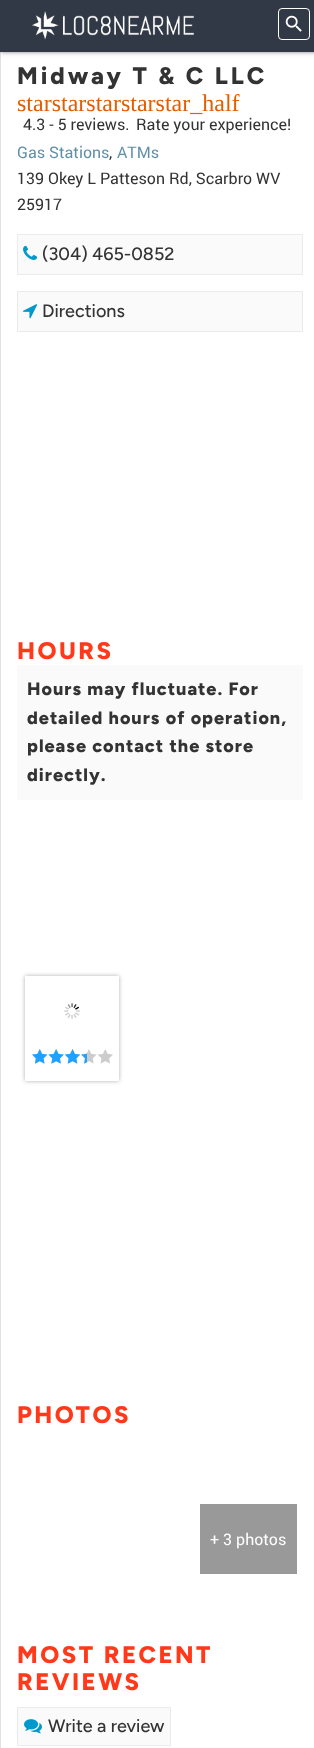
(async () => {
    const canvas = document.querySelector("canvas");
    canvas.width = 314;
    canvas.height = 1748;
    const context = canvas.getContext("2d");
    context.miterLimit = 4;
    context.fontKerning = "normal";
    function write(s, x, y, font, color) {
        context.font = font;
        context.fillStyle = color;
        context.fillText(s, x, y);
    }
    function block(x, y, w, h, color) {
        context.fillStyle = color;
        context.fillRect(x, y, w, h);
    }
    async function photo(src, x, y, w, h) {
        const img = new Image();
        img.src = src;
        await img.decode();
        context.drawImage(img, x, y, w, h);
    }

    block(0, 0, 314, 1748, "rgb(255, 255, 255)");
    context.fillStyle = "rgb(225, 225, 225)";
    context.beginPath();
    context.moveTo(0, 52);
    context.lineTo(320, 52);
    context.lineTo(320, 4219);
    context.bezierCurveTo(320, 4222, 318, 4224, 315, 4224);
    context.lineTo(5, 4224);
    context.bezierCurveTo(2, 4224, 0, 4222, 0, 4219);
    context.closePath();
    context.moveTo(1, 52);
    context.lineTo(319, 52);
    context.lineTo(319, 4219);
    context.bezierCurveTo(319, 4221, 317, 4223, 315, 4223);
    context.lineTo(5, 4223);
    context.bezierCurveTo(3, 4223, 1, 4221, 1, 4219);
    context.closePath();
    context.fill("evenodd");
    context.fillStyle = "rgba(0, 0, 0, 0.3)";
    context.filter = "blur(1.5px)";
    context.beginPath();
    context.rect(1, 2, 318, 50);
    context.fill();
    context.filter = "none";
    context.fillStyle = "rgba(50, 50, 93, 0.25)";
    context.filter = "blur(2.5px)";
    context.beginPath();
    context.rect(1, 3, 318, 50);
    context.fill();
    context.filter = "none";
    block(0, 0, 314, 52, "rgb(50, 57, 70)");
    await photo("media/1.png", 32, 11, 162, 29);
    context.beginPath();
    context.roundRect(278.5, 8.5, 31, 31, 3.5);
    context.strokeStyle = "rgb(255, 255, 255)";
    context.stroke();
    await photo("media/2.png", 285, 15, 17, 17);
    context.letterSpacing = "3px";
    write("Midway T & C LLC", 17, 84, "800 24px Figtree", "rgb(51, 51, 51)");
    context.letterSpacing = "0px";
    write("starstarstarstarstar_half", 17, 111, "24px Liberation Serif", "rgb(230, 93, 1)");
    write("4.3 - 5 reviews.", 23, 130, "16px Roboto", "rgb(51, 51, 51)");
    write("Rate your experience!", 136, 130, "16px Roboto", "rgb(51, 51, 51)");
    write("Gas Stations", 17, 158, "16px Roboto", "rgb(96, 144, 169)");
    write(",", 109, 158, "16px Roboto", "rgb(51, 51, 51)");
    write("ATMs", 117, 158, "16px Roboto", "rgb(96, 144, 169)");
    write("139 Okey L Patteson Rd, Scarbro WV", 17, 184, "16px Roboto", "rgb(51, 51, 51)");
    write("25917", 17, 210, "16px Roboto", "rgb(51, 51, 51)");
    context.fillStyle = "rgb(250, 250, 250)";
    context.beginPath();
    context.rect(17.5, 234.5, 285, 40);
    context.fill();
    context.strokeStyle = "rgb(235, 235, 235)";
    context.stroke();
    await photo("media/3.png", 23, 245, 15, 15);
    write("(304) 465-0852", 42, 260, "500 18px Figtree", "rgb(51, 51, 51)");
    context.fillStyle = "rgb(250, 250, 250)";
    context.beginPath();
    context.rect(17.5, 291.5, 285, 40);
    context.fill();
    context.stroke();
    await photo("media/4.png", 23, 304, 15, 15);
    write("Directions", 42, 317, "500 18px Figtree", "rgb(51, 51, 51)");
    context.letterSpacing = "2.5px";
    write("HOURS", 17, 659, "800 24px Figtree", "rgb(255, 57, 25)");
    block(17, 665, 286, 135, "rgb(250, 250, 250)");
    context.letterSpacing = "1px";
    write("Hours may fluctuate. For", 27, 695, "800 18px Figtree", "rgb(51, 51, 51)");
    write("detailed hours of operation,", 27, 724, "800 18px Figtree", "rgb(51, 51, 51)");
    write("please contact the store", 27, 752, "800 18px Figtree", "rgb(51, 51, 51)");
    write("directly.", 27, 781, "800 18px Figtree", "rgb(51, 51, 51)");
    context.save();
    context.beginPath();
    context.moveTo(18, 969);
    context.lineTo(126, 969);
    context.lineTo(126, 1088);
    context.lineTo(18, 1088);
    context.closePath();
    context.moveTo(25, 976);
    context.lineTo(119, 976);
    context.lineTo(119, 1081);
    context.lineTo(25, 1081);
    context.closePath();
    context.clip("evenodd");
    context.fillStyle = "rgba(0, 0, 0, 0.31)";
    context.filter = "blur(2px)";
    context.beginPath();
    context.rect(25, 976, 94, 105);
    context.fill();
    context.filter = "none";
    context.restore();
    await photo("media/5.png", 64, 1003, 16, 16);
    await photo("media/6.png", 32, 1049, 81, 15);
    await photo("media/7.png", 32, 1049, 55, 15);
    context.letterSpacing = "2.5px";
    write("PHOTOS", 17, 1423, "800 24px Figtree", "rgb(255, 57, 25)");
    block(200, 1504, 97, 70, "rgb(153, 153, 153)");
    context.letterSpacing = "0px";
    write("+ 3 photos", 210, 1545, "16px Roboto", "rgb(255, 255, 255)");
    context.letterSpacing = "2.5px";
    write("MOST RECENT", 17, 1663, "800 24px Figtree", "rgb(255, 57, 25)");
    write("REVIEWS", 17, 1690, "800 24px Figtree", "rgb(255, 57, 25)");
    context.fillStyle = "rgb(250, 250, 250)";
    context.beginPath();
    context.rect(17.5, 1707.5, 153, 38);
    context.fill();
    context.stroke();
    await photo("media/8.png", 24, 1719, 18, 15);
    context.letterSpacing = "0px";
    write("Write a review", 48, 1732, "500 18px Figtree", "rgb(51, 51, 51)");
})();
